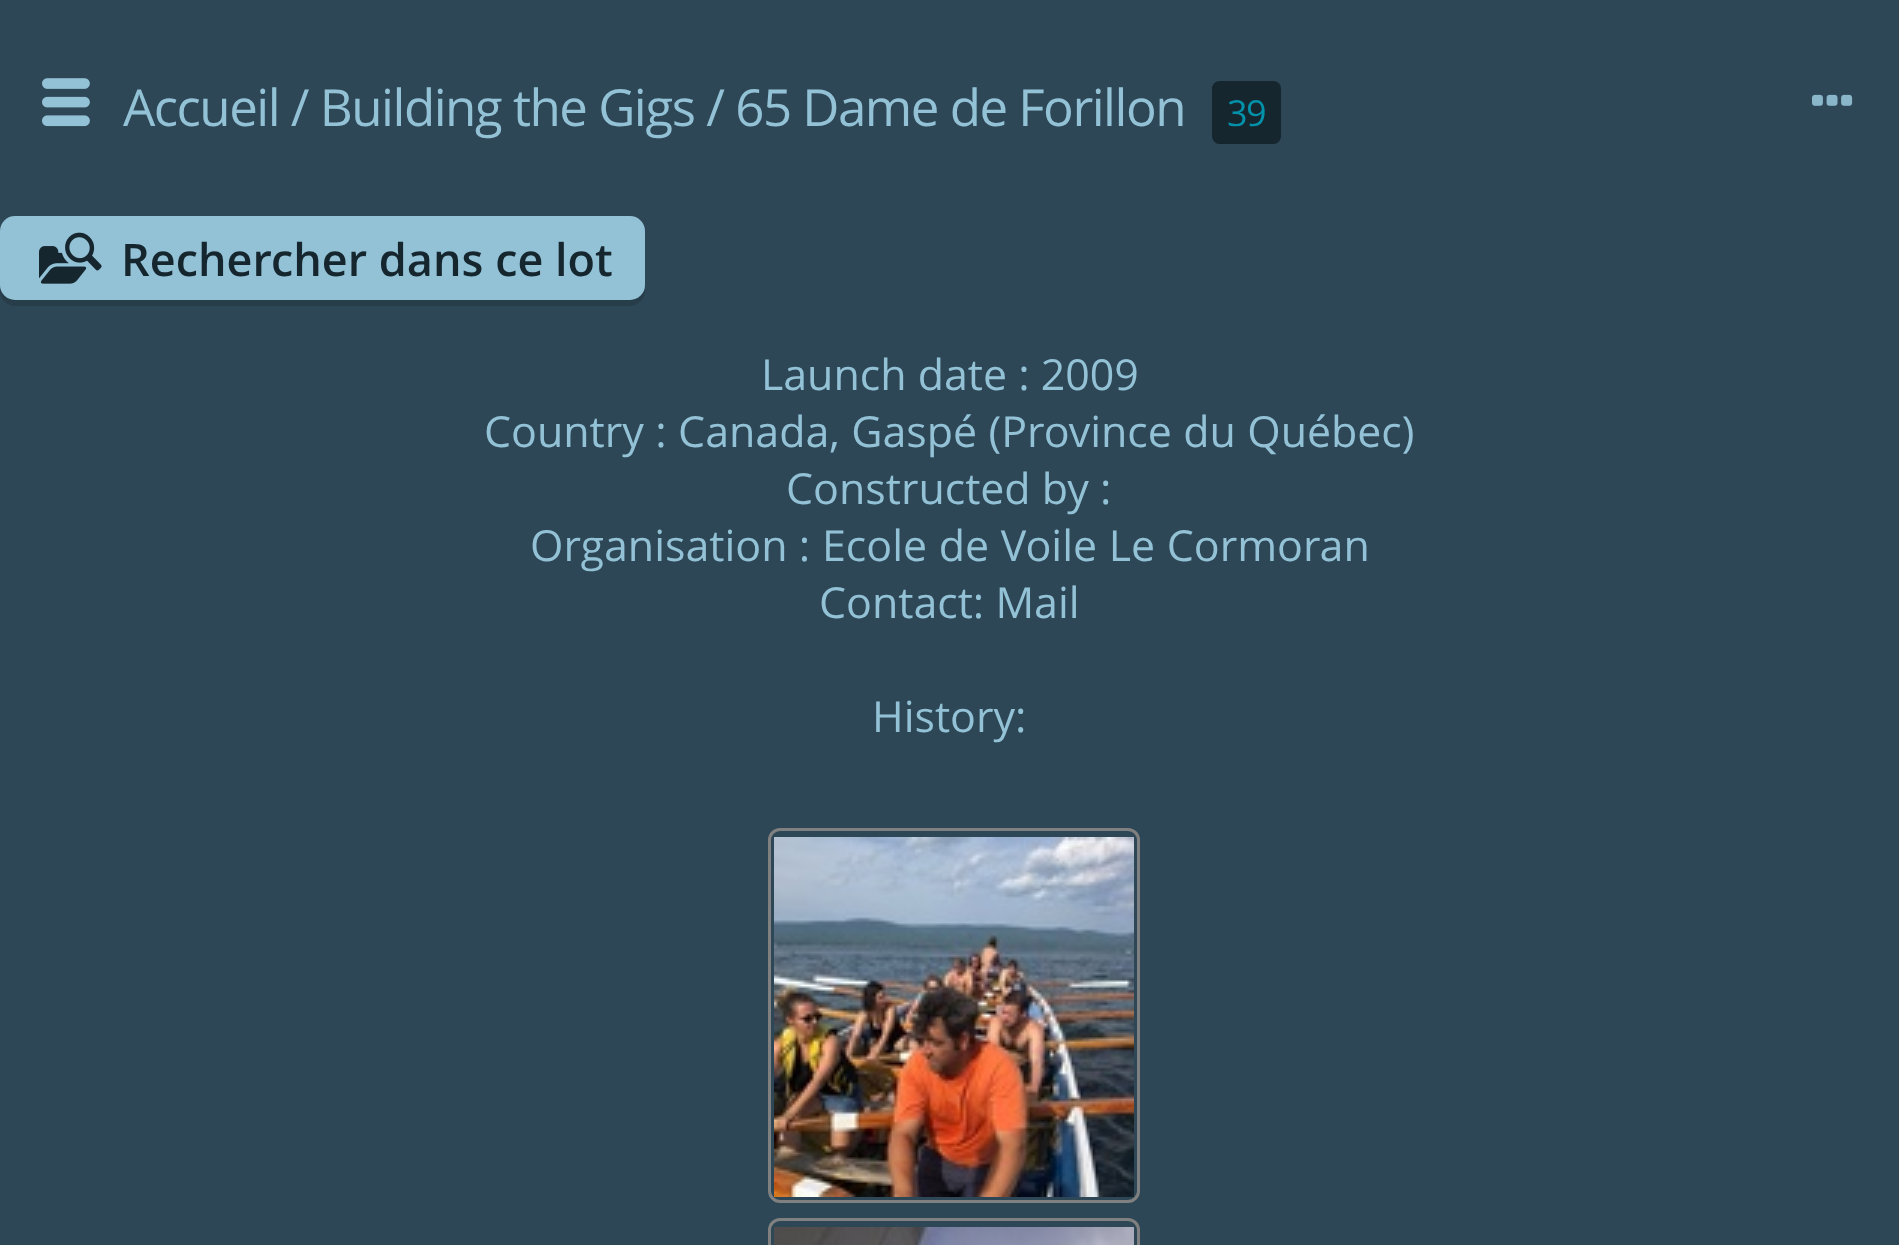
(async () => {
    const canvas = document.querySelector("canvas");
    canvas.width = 1899;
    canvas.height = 1245;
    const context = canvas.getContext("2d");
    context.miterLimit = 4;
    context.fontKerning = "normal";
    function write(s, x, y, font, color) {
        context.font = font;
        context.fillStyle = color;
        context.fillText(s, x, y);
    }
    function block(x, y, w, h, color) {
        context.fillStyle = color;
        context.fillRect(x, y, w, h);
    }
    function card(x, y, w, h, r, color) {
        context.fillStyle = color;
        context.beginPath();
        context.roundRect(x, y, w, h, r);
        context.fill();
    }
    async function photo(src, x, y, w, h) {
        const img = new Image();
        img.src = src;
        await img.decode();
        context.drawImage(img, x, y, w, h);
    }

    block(0, 0, 1899, 1245, "rgb(46, 71, 86)");
    await photo("media/1.png", 42, 78, 48, 49);
    context.letterSpacing = "-1.5px";
    write("Accueil / Building the Gigs / 65 Dame de Forillon", 123, 126, "51px Open Sans", "rgb(147, 194, 214)");
    block(1227, 81, 39, 63, "rgb(22, 38, 46)");
    write("39", 1227, 126, "36px Open Sans", "rgb(3, 145, 170)");
    context.fillStyle = "rgb(22, 38, 46)";
    context.beginPath();
    context.roundRect(1212, 81, 15, 63, [7.5, 0, 0, 7.5]);
    context.fill();
    context.beginPath();
    context.roundRect(1266, 81, 15, 63, [0, 7.5, 7.5, 0]);
    context.fill();
    await photo("media/2.png", 1812, 94, 41, 12);
    context.fillStyle = "rgb(40, 61, 74)";
    context.beginPath();
    context.moveTo(0, 285);
    context.lineTo(0, 291);
    context.bezierCurveTo(0, 299, 7, 306, 15, 306);
    context.lineTo(630, 306);
    context.bezierCurveTo(638, 306, 645, 299, 645, 291);
    context.lineTo(645, 285);
    context.bezierCurveTo(645, 293, 638, 300, 630, 300);
    context.lineTo(15, 300);
    context.bezierCurveTo(7, 300, 0, 293, 0, 285);
    context.closePath();
    context.fill();
    card(0, 216, 645, 84, 15, "rgb(147, 194, 214)");
    await photo("media/3.png", 39, 232, 63, 52);
    context.letterSpacing = "0px";
    write("Rechercher dans ce lot", 121, 276, "600 45px Open Sans", "rgb(22, 38, 46)");
    write("Launch date : 2009", 761, 390, "42.9px Open Sans", "rgb(147, 194, 214)");
    context.wordSpacing = "0.25px";
    write("Country : Canada, Gaspé (Province du Québec)", 484, 447, "42.9px Open Sans", "rgb(147, 194, 214)");
    context.wordSpacing = "0px";
    write("Constructed by :", 786, 504, "42.9px Open Sans", "rgb(147, 194, 214)");
    write("Organisation :", 530, 561, "42.9px Open Sans", "rgb(147, 194, 214)");
    context.wordSpacing = "0.5px";
    write("Ecole de Voile Le Cormoran", 822, 561, "42.9px Open Sans", "rgb(147, 194, 214)");
    context.wordSpacing = "0px";
    write("Contact: Mail", 819, 618, "42.9px Open Sans", "rgb(147, 194, 214)");
    write("History:", 872, 732, "42.9px Open Sans", "rgb(147, 194, 214)");
    context.beginPath();
    context.roundRect(769.5, 829.5, 369, 372, 10.5);
    context.strokeStyle = "rgb(128, 128, 128)";
    context.lineWidth = 3;
    context.stroke();
    await photo("media/4.png", 774, 837, 360, 360);
    context.beginPath();
    context.roundRect(769.5, 1219.5, 369, 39, 10.5);
    context.stroke();
    await photo("media/5.png", 774, 1227, 360, 18);
})();
